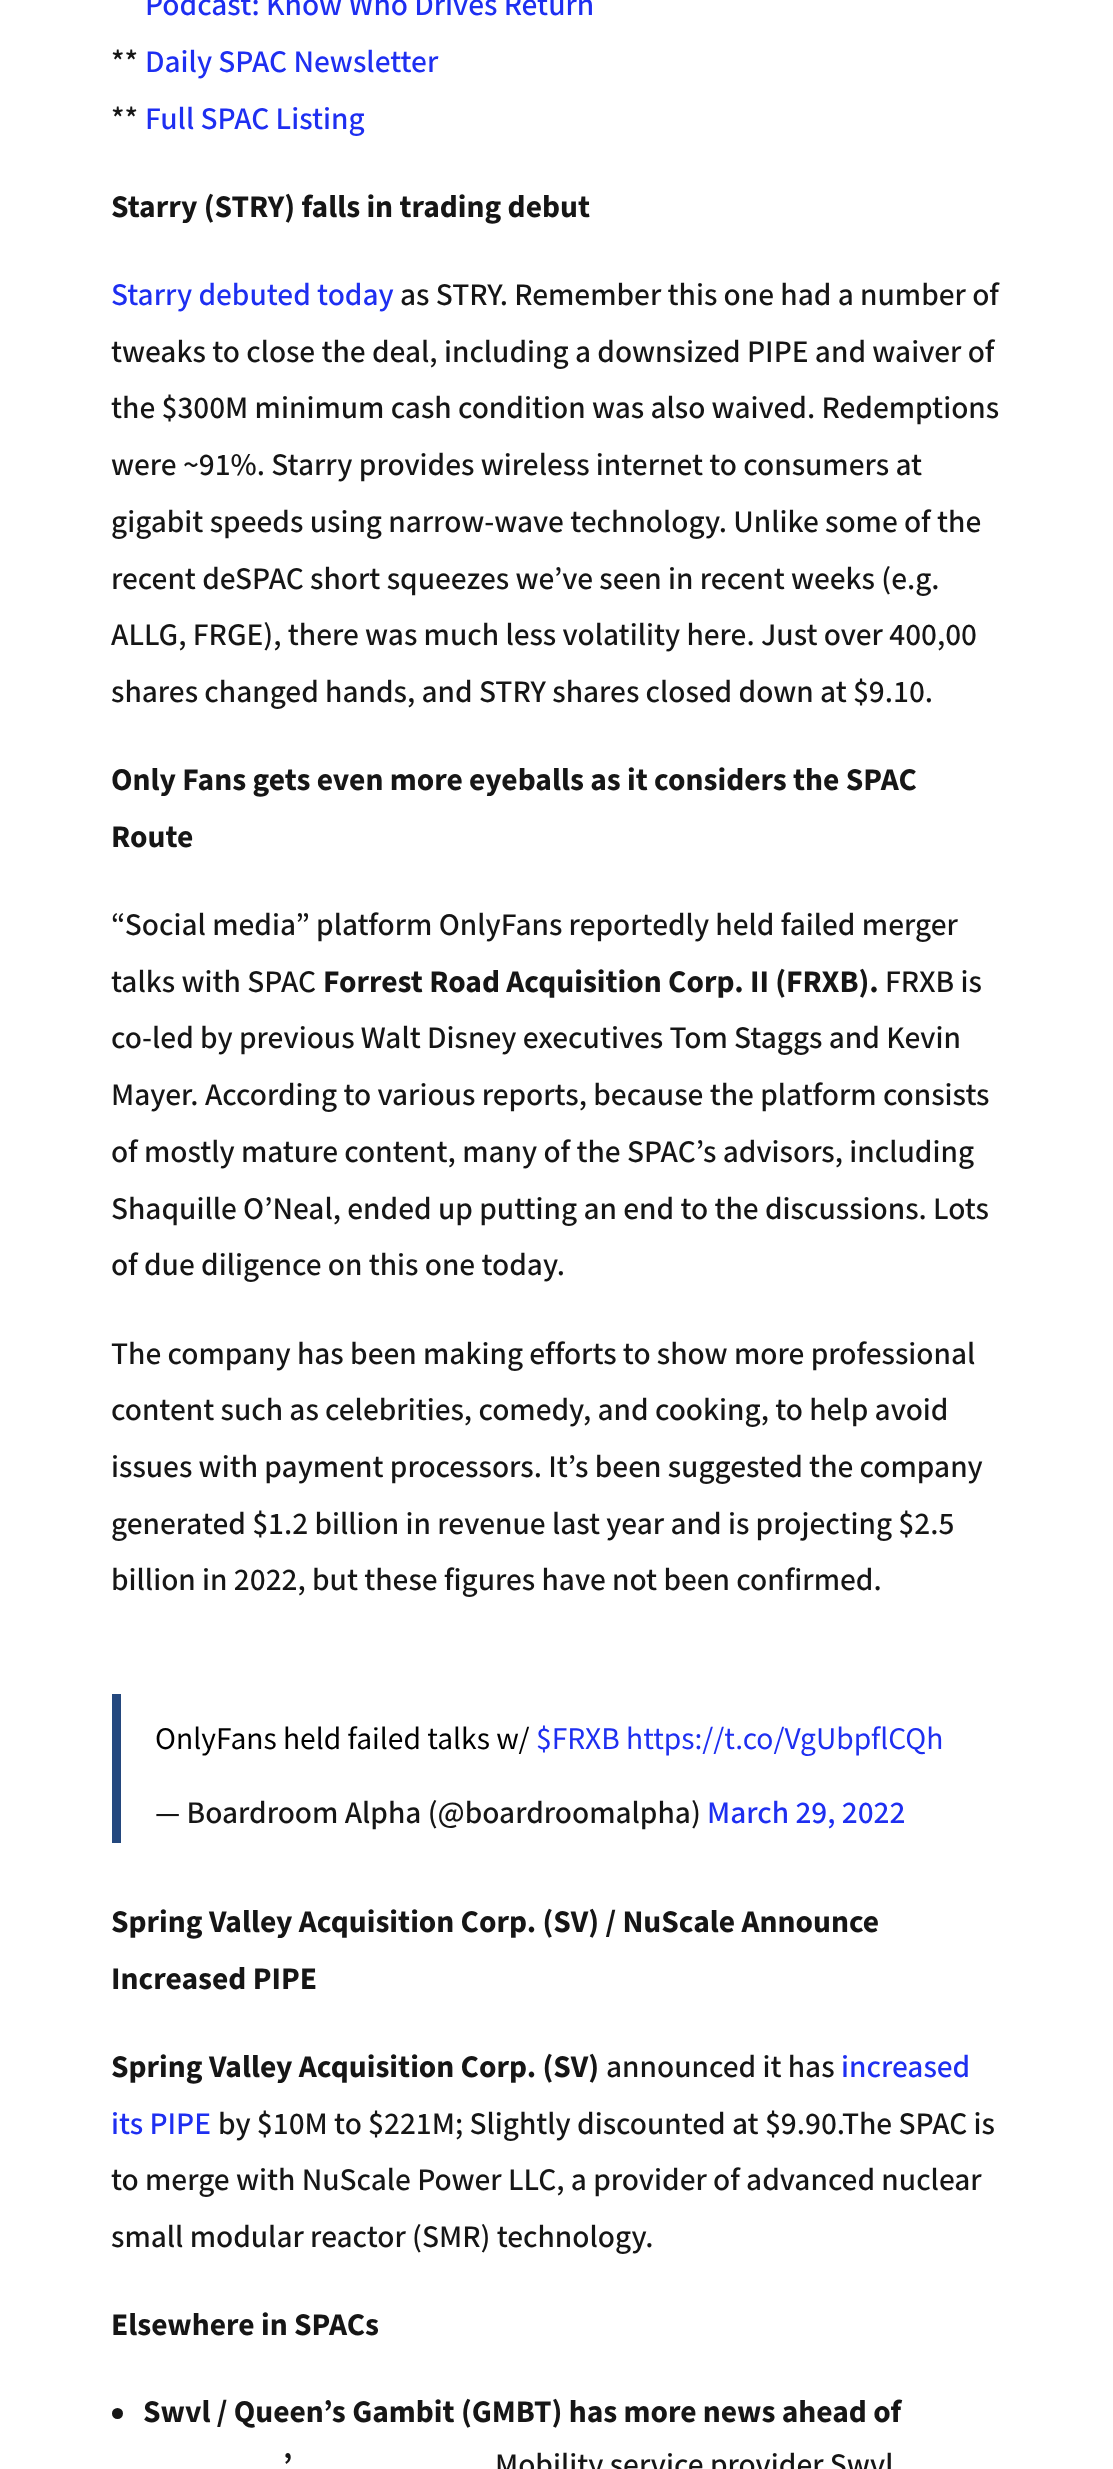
(async () => {
    const canvas = document.querySelector("canvas");
    canvas.width = 1113;
    canvas.height = 2469;
    const context = canvas.getContext("2d");
    context.miterLimit = 4;
    context.fontKerning = "normal";
    function write(s, x, y, font, color) {
        context.font = font;
        context.fillStyle = color;
        context.fillText(s, x, y);
    }
    function block(x, y, w, h, color) {
        context.fillStyle = color;
        context.fillRect(x, y, w, h);
    }

    block(0, 0, 1113, 2469, "rgb(255, 255, 255)");
    write("Podcast: Know Who Drives Return", 145, 15, "500 31.5px Mada", "rgb(30, 47, 241)");
    write("**", 111, 72, "500 31.5px Mada", "rgb(22, 22, 22)");
    write("Daily SPAC Newsletter", 145, 72, "500 31.5px Mada", "rgb(30, 47, 241)");
    write("**", 111, 129, "500 31.5px Mada", "rgb(22, 22, 22)");
    write("Full SPAC Listing", 145, 129, "500 31.5px Mada", "rgb(30, 47, 241)");
    write("Starry (STRY) falls in trading debut", 111, 217, "bold 31.5px Mada", "rgb(22, 22, 22)");
    write("Starry debuted today", 111, 305, "500 31.5px Mada", "rgb(30, 47, 241)");
    write("as STRY. Remember this one had a number of", 400, 305, "500 31.5px Mada", "rgb(22, 22, 22)");
    write("tweaks to close the deal, including a downsized PIPE and waiver of", 111, 362, "500 31.5px Mada", "rgb(22, 22, 22)");
    write("the $300M minimum cash condition was also waived. Redemptions", 111, 418, "500 31.5px Mada", "rgb(22, 22, 22)");
    write("were ~91%. Starry provides wireless internet to consumers at", 111, 475, "500 31.5px Mada", "rgb(22, 22, 22)");
    write("gigabit speeds using narrow-wave technology. Unlike some of the", 111, 532, "500 31.5px Mada", "rgb(22, 22, 22)");
    write("recent deSPAC short squeezes we’ve seen in recent weeks (e.g.", 111, 589, "500 31.5px Mada", "rgb(22, 22, 22)");
    write("ALLG, FRGE), there was much less volatility here. Just over 400,00", 111, 645, "500 31.5px Mada", "rgb(22, 22, 22)");
    write("shares changed hands, and STRY shares closed down at $9.10.", 111, 702, "500 31.5px Mada", "rgb(22, 22, 22)");
    write("Only Fans gets even more eyeballs as it considers the SPAC", 111, 790, "bold 31.5px Mada", "rgb(22, 22, 22)");
    write("Route", 111, 847, "bold 31.5px Mada", "rgb(22, 22, 22)");
    write("“Social media” platform OnlyFans reportedly held failed merger", 111, 935, "500 31.5px Mada", "rgb(22, 22, 22)");
    write("talks with SPAC", 111, 992, "500 31.5px Mada", "rgb(22, 22, 22)");
    write("Forrest Road Acquisition Corp. II (FRXB).", 323, 992, "bold 31.5px Mada", "rgb(22, 22, 22)");
    write("FRXB is", 885, 992, "500 31.5px Mada", "rgb(22, 22, 22)");
    write("co-led by previous Walt Disney executives Tom Staggs and Kevin", 111, 1048, "500 31.5px Mada", "rgb(22, 22, 22)");
    write("Mayer. According to various reports, because the platform consists", 111, 1105, "500 31.5px Mada", "rgb(22, 22, 22)");
    write("of mostly mature content, many of the SPAC’s advisors, including", 111, 1162, "500 31.5px Mada", "rgb(22, 22, 22)");
    write("Shaquille O’Neal, ended up putting an end to the discussions. Lots", 111, 1219, "500 31.5px Mada", "rgb(22, 22, 22)");
    write("of due diligence on this one today.", 111, 1275, "500 31.5px Mada", "rgb(22, 22, 22)");
    write("The company has been making efforts to show more professional", 111, 1364, "500 31.5px Mada", "rgb(22, 22, 22)");
    write("content such as celebrities, comedy, and cooking, to help avoid", 111, 1420, "500 31.5px Mada", "rgb(22, 22, 22)");
    write("issues with payment processors. It’s been suggested the company", 111, 1477, "500 31.5px Mada", "rgb(22, 22, 22)");
    write("generated $1.2 billion in revenue last year and is projecting $2.5", 111, 1534, "500 31.5px Mada", "rgb(22, 22, 22)");
    write("billion in 2022, but these figures have not been confirmed.", 111, 1590, "500 31.5px Mada", "rgb(22, 22, 22)");
    block(112, 1694, 9, 149, "rgb(36, 72, 126)");
    write("OnlyFans held failed talks w/", 155, 1749, "31.5px Mada", "rgb(0, 0, 0)");
    write("$FRXB https://t.co/VgUbpflCQh", 536, 1749, "31.5px Mada", "rgb(30, 47, 241)");
    write("— Boardroom Alpha (@boardroomalpha)", 155, 1823, "500 31.5px Mada", "rgb(22, 22, 22)");
    write("March 29, 2022", 707, 1823, "500 31.5px Mada", "rgb(30, 47, 241)");
    write("Spring Valley Acquisition Corp. (SV) / NuScale Announce", 111, 1932, "bold 31.5px Mada", "rgb(22, 22, 22)");
    write("Increased PIPE", 111, 1989, "bold 31.5px Mada", "rgb(22, 22, 22)");
    write("Spring Valley Acquisition Corp. (SV)", 111, 2077, "bold 31.5px Mada", "rgb(22, 22, 22)");
    write("announced it has", 606, 2077, "500 31.5px Mada", "rgb(22, 22, 22)");
    write("increased", 841, 2077, "500 31.5px Mada", "rgb(30, 47, 241)");
    write("its PIPE", 111, 2134, "500 31.5px Mada", "rgb(30, 47, 241)");
    write("by $10M to $221M; Slightly discounted at $9.90.The SPAC is", 218, 2134, "500 31.5px Mada", "rgb(22, 22, 22)");
    write("to merge with NuScale Power LLC, a provider of advanced nuclear", 111, 2190, "500 31.5px Mada", "rgb(22, 22, 22)");
    write("small modular reactor (SMR) technology.", 111, 2247, "500 31.5px Mada", "rgb(22, 22, 22)");
    write("Elsewhere in SPACs", 111, 2335, "bold 31.5px Mada", "rgb(22, 22, 22)");
    context.beginPath();
    context.arc(117.5, 2413.5, 5.5, 0, Math.PI * 2);
    context.fill();
    write("Swvl / Queen’s Gambit (GMBT) has more news ahead of", 143, 2422, "bold 31.5px Mada", "rgb(22, 22, 22)");
    write("’", 283, 2475, "bold 31.5px Mada", "rgb(22, 22, 22)");
    write("Mobility service provider Swvl", 495, 2475, "500 31.5px Mada", "rgb(22, 22, 22)");
})();
